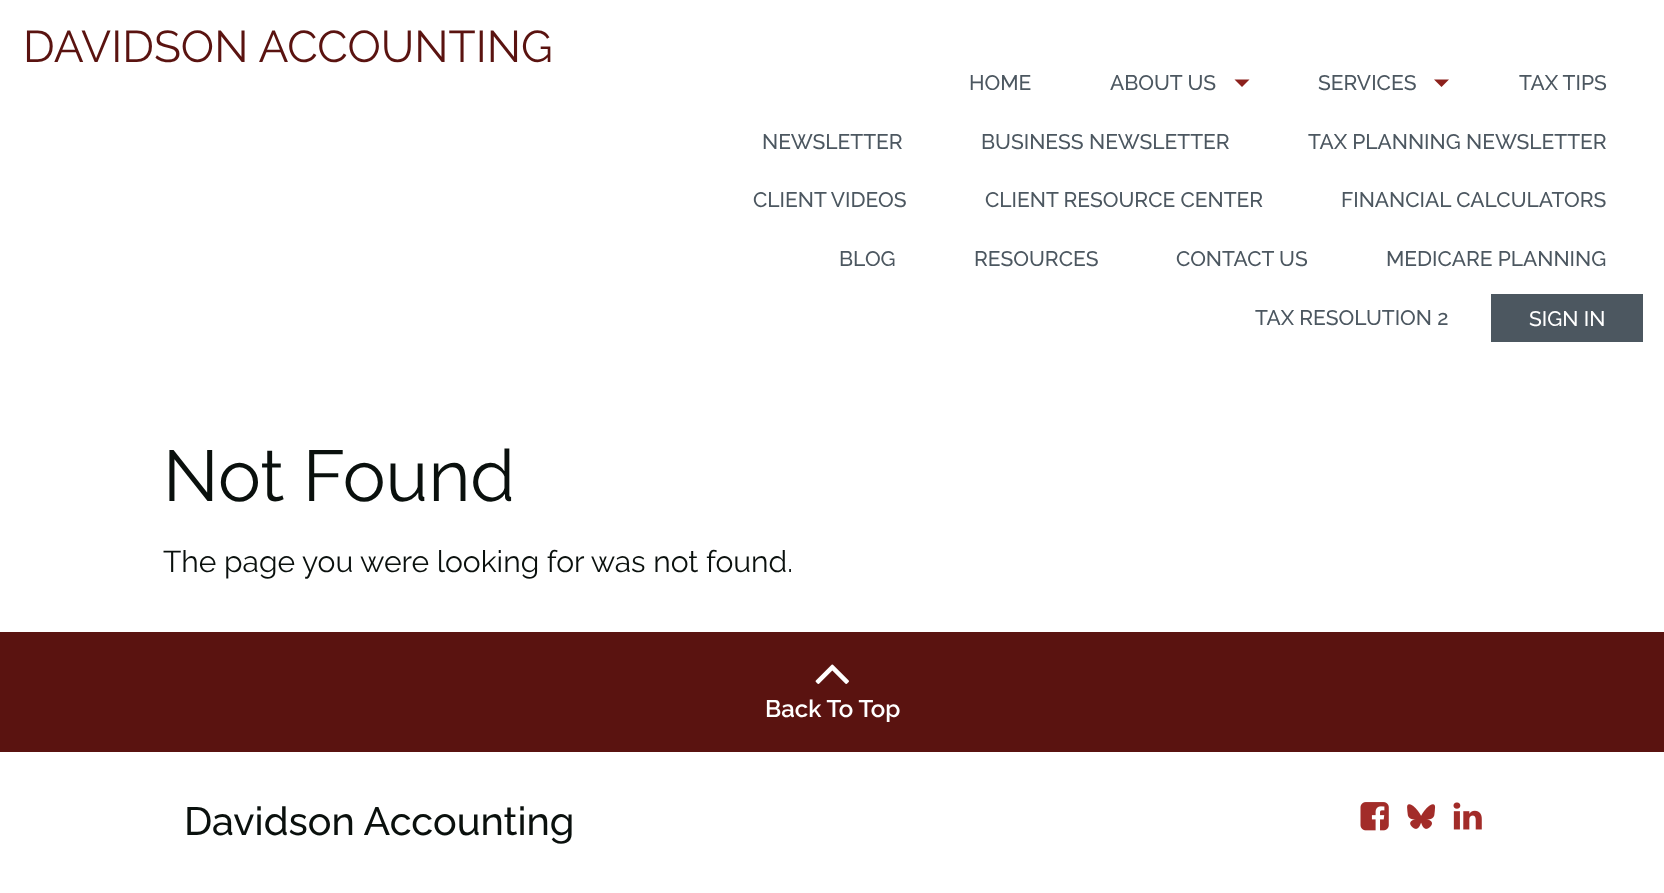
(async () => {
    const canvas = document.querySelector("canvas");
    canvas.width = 1664;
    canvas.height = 893;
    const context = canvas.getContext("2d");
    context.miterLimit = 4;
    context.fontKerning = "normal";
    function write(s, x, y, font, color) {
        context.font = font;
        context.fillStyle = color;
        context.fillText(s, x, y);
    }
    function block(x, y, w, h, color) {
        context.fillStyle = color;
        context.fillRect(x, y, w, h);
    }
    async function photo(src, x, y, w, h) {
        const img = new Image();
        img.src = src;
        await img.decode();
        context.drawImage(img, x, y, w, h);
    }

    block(0, 0, 1664, 893, "rgb(255, 255, 255)");
    write("DAVIDSON ACCOUNTING", 23, 62, "44.4px Raleway", "rgb(90, 19, 16)");
    write("HOME", 969, 90, "500 21px Raleway", "rgb(76, 87, 96)");
    write("ABOUT US", 1110, 90, "500 21px Raleway", "rgb(76, 87, 96)");
    context.fillStyle = "rgb(140, 33, 28)";
    context.beginPath();
    context.moveTo(1234.5, 79.5);
    context.lineTo(1249.5, 79.5);
    context.lineTo(1242, 87);
    context.closePath();
    context.fill();
    write("SERVICES", 1318, 90, "500 21px Raleway", "rgb(76, 87, 96)");
    context.fillStyle = "rgb(140, 33, 28)";
    context.beginPath();
    context.moveTo(1434, 79.5);
    context.lineTo(1449, 79.5);
    context.lineTo(1441.5, 87);
    context.closePath();
    context.fill();
    write("TAX TIPS", 1519, 90, "500 21px Raleway", "rgb(76, 87, 96)");
    write("NEWSLETTER", 762, 149, "500 21px Raleway", "rgb(76, 87, 96)");
    write("BUSINESS NEWSLETTER", 981, 149, "500 21px Raleway", "rgb(76, 87, 96)");
    write("TAX PLANNING NEWSLETTER", 1308, 149, "500 21px Raleway", "rgb(76, 87, 96)");
    write("CLIENT VIDEOS", 753, 207, "500 21px Raleway", "rgb(76, 87, 96)");
    write("CLIENT RESOURCE CENTER", 985, 207, "500 21px Raleway", "rgb(76, 87, 96)");
    write("FINANCIAL CALCULATORS", 1341, 207, "500 21px Raleway", "rgb(76, 87, 96)");
    write("BLOG", 839, 266, "500 21px Raleway", "rgb(76, 87, 96)");
    write("RESOURCES", 974, 266, "500 21px Raleway", "rgb(76, 87, 96)");
    write("CONTACT US", 1176, 266, "500 21px Raleway", "rgb(76, 87, 96)");
    write("MEDICARE PLANNING", 1386, 266, "500 21px Raleway", "rgb(76, 87, 96)");
    write("TAX RESOLUTION 2", 1255, 325, "500 21px Raleway", "rgb(76, 87, 96)");
    block(1491, 294, 152, 48, "rgb(76, 87, 96)");
    write("SIGN IN", 1529, 326, "500 21px Raleway", "rgb(255, 255, 255)");
    write("Not Found", 163, 501, "72px Raleway", "rgb(10, 16, 13)");
    write("The page you were looking for was not found.", 163, 572, "30px Raleway", "rgb(10, 16, 13)");
    block(0, 632, 1664, 120, "rgb(90, 19, 16)");
    await photo("media/1.png", 815, 664, 34, 20);
    write("Back To Top", 765, 717, "600 24px Raleway", "rgb(255, 255, 255)");
    write("Davidson Accounting", 184, 835, "500 39.5px Raleway", "rgb(10, 16, 13)");
    await photo("media/2.png", 1360, 802, 29, 29);
    await photo("media/3.png", 1407, 804, 29, 25);
    await photo("media/4.png", 1453, 802, 29, 28);
})();
